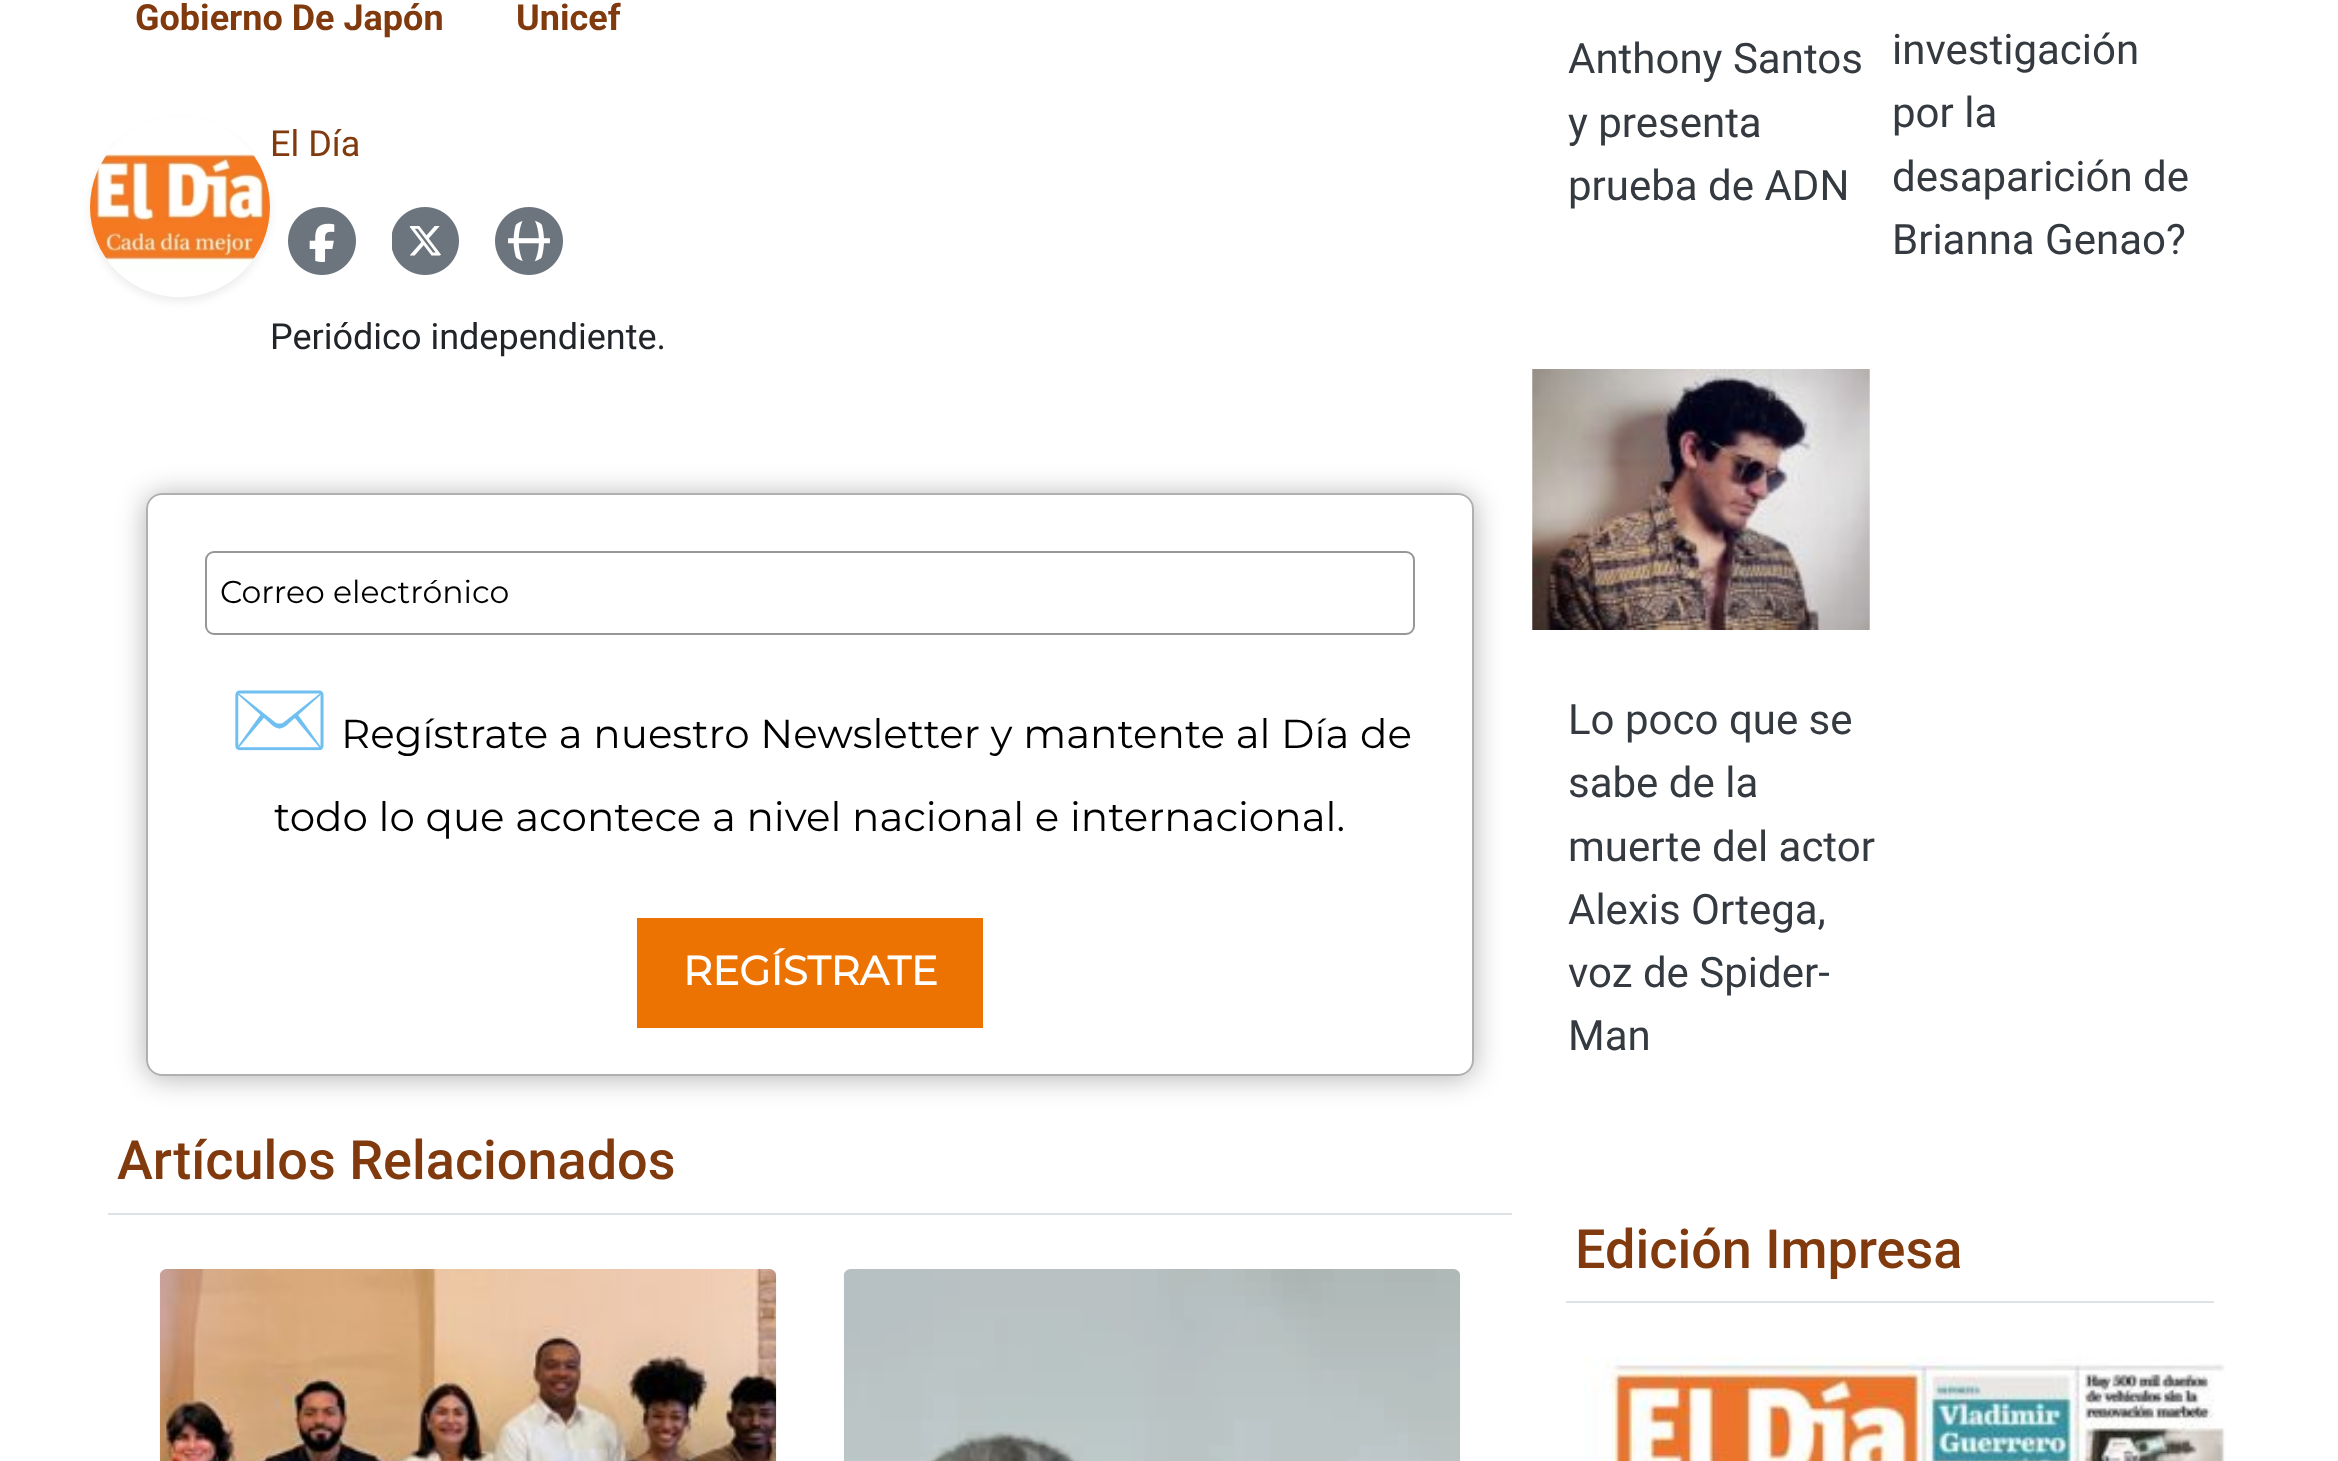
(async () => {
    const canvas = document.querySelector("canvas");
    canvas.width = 2338;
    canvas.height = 1461;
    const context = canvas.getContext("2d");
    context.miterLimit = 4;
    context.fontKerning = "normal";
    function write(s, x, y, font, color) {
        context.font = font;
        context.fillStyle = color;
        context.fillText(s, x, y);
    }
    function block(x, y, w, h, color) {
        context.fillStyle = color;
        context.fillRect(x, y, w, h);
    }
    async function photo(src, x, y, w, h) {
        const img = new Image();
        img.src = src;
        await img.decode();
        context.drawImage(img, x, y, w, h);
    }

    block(0, 0, 2338, 1461, "rgb(255, 255, 255)");
    write("Gobierno De Japón", 135, 30, "bold 36px Roboto", "rgb(128, 58, 14)");
    write("Unicef", 516, 30, "bold 36px Roboto", "rgb(128, 58, 14)");
    context.save();
    context.beginPath();
    context.moveTo(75, 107);
    context.lineTo(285, 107);
    context.lineTo(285, 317);
    context.lineTo(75, 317);
    context.closePath();
    context.moveTo(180, 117);
    context.bezierCurveTo(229.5, 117, 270, 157.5, 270, 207);
    context.bezierCurveTo(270, 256.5, 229.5, 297, 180, 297);
    context.bezierCurveTo(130.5, 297, 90, 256.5, 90, 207);
    context.bezierCurveTo(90, 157.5, 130.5, 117, 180, 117);
    context.closePath();
    context.clip("evenodd");
    context.fillStyle = "rgba(0, 0, 0, 0.07)";
    context.filter = "blur(4.5px)";
    context.beginPath();
    context.roundRect(90, 122, 180, 180, 90);
    context.fill();
    context.filter = "none";
    context.restore();
    await photo("media/1.png", 90, 154, 180, 137);
    write("El Día", 270, 156, "36px Roboto", "rgb(128, 58, 14)");
    await photo("media/2.png", 288, 207, 68, 68);
    await photo("media/3.png", 392, 207, 67, 68);
    await photo("media/4.png", 495, 207, 68, 68);
    write("Periódico independiente.", 270, 349, "36px Roboto", "rgb(33, 37, 41)");
    context.save();
    context.beginPath();
    context.moveTo(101, 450);
    context.lineTo(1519, 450);
    context.lineTo(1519, 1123);
    context.lineTo(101, 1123);
    context.closePath();
    context.moveTo(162, 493);
    context.lineTo(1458, 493);
    context.bezierCurveTo(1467, 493, 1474, 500, 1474, 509);
    context.lineTo(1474, 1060);
    context.bezierCurveTo(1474, 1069, 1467, 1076, 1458, 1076);
    context.lineTo(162, 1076);
    context.bezierCurveTo(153, 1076, 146, 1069, 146, 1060);
    context.lineTo(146, 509);
    context.bezierCurveTo(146, 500, 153, 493, 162, 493);
    context.closePath();
    context.clip("evenodd");
    context.fillStyle = "rgba(0, 0, 0, 0.3)";
    context.filter = "blur(14.5px)";
    context.beginPath();
    context.roundRect(146, 495, 1328, 583, 16);
    context.fill();
    context.filter = "none";
    context.restore();
    context.beginPath();
    context.roundRect(147, 494, 1326, 581, 15);
    context.strokeStyle = "rgb(176, 176, 176)";
    context.lineWidth = 2;
    context.stroke();
    context.beginPath();
    context.roundRect(206, 552, 1208, 82, 8);
    context.strokeStyle = "rgb(151, 151, 151)";
    context.stroke();
    write("Correo electrónico", 220, 603, "100 31.5px Montserrat", "rgb(0, 0, 0)");
    write("✉️", 229, 748, "81px Noto Color Emoji", "rgb(0, 0, 0)");
    write("Regístrate a nuestro Newsletter y mantente al Día de", 341, 748, "100 40.5px Montserrat", "rgb(0, 0, 0)");
    write("todo lo que acontece a nivel nacional e internacional.", 274, 831, "100 40.5px Montserrat", "rgb(0, 0, 0)");
    block(637, 918, 346, 110, "rgb(236, 114, 2)");
    write("REGÍSTRATE", 683, 985, "bold 40.5px Montserrat", "rgb(255, 255, 255)");
    block(108, 1213, 1404, 2, "rgb(222, 226, 230)");
    write("Artículos Relacionados", 117, 1179, "500 54px Roboto", "rgb(128, 58, 14)");
    await photo("media/5.png", 159, 1269, 618, 192);
    await photo("media/6.png", 843, 1269, 618, 192);
    write("Anthony Santos", 1568, 73, "42px Roboto", "rgb(52, 58, 64)");
    write("y presenta", 1568, 137, "42px Roboto", "rgb(52, 58, 64)");
    write("prueba de ADN", 1568, 200, "42px Roboto", "rgb(52, 58, 64)");
    write("investigación", 1892, 64, "42px Roboto", "rgb(52, 58, 64)");
    write("por la", 1892, 127, "42px Roboto", "rgb(52, 58, 64)");
    write("desaparición de", 1892, 191, "42px Roboto", "rgb(52, 58, 64)");
    write("Brianna Genao?", 1892, 254, "42px Roboto", "rgb(52, 58, 64)");
    await photo("media/7.png", 1532, 369, 338, 261);
    write("Lo poco que se", 1568, 734, "42px Roboto", "rgb(52, 58, 64)");
    write("sabe de la", 1568, 797, "42px Roboto", "rgb(52, 58, 64)");
    write("muerte del actor", 1568, 861, "42px Roboto", "rgb(52, 58, 64)");
    write("Alexis Ortega,", 1568, 924, "42px Roboto", "rgb(52, 58, 64)");
    write("voz de Spider-", 1568, 987, "42px Roboto", "rgb(52, 58, 64)");
    write("Man", 1568, 1050, "42px Roboto", "rgb(52, 58, 64)");
    block(1566, 1301, 648, 2, "rgb(222, 226, 230)");
    write("Edición Impresa", 1575, 1268, "500 54px Roboto", "rgb(128, 58, 14)");
    await photo("media/8.png", 1584, 1356, 642, 105);
})();
